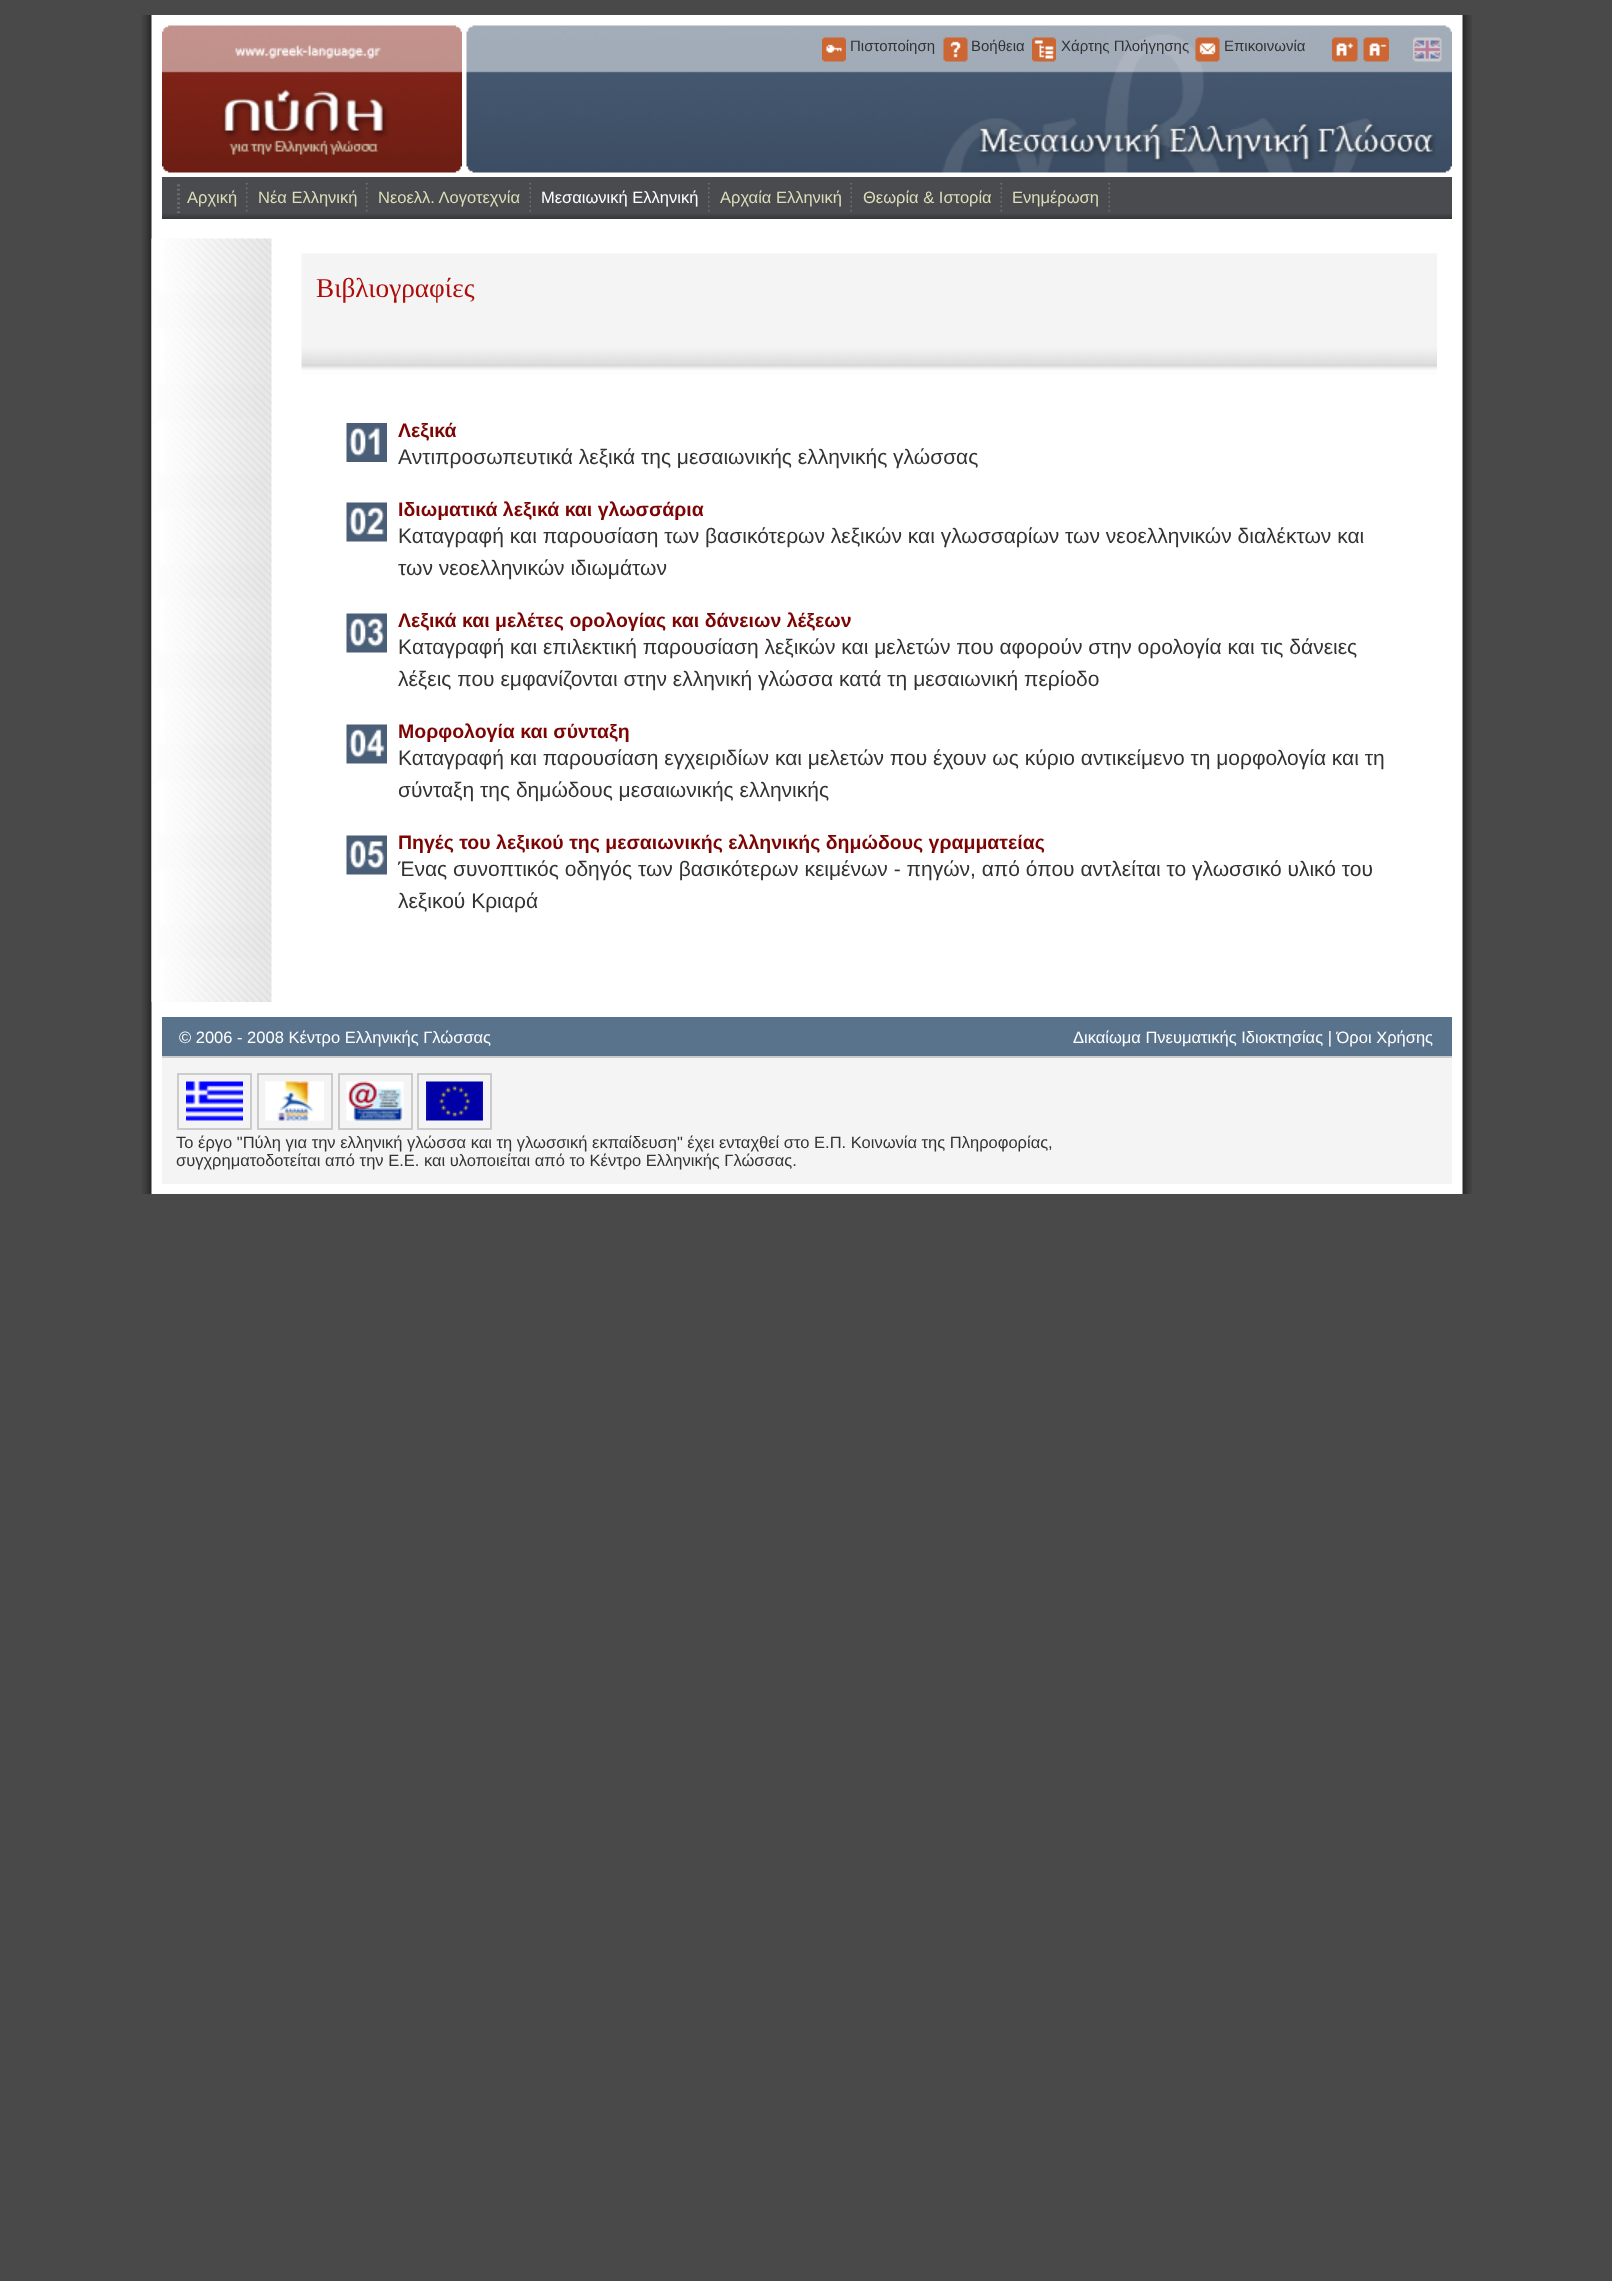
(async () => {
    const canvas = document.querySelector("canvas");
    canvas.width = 1612;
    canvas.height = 2281;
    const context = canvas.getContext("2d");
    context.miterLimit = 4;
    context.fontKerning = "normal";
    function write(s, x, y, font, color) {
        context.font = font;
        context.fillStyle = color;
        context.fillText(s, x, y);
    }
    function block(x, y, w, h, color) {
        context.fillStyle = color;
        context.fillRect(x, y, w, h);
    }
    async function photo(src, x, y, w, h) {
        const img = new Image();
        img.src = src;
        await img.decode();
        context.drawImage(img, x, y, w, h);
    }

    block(0, 0, 1612, 2281, "rgb(73, 73, 73)");
    await photo("media/1.png", 142, 15, 1330, 1179);
    await photo("media/2.png", 162, 25, 300, 148);
    await photo("media/3.png", 466, 25, 986, 148);
    await photo("media/4.png", 945, 117, 491, 45);
    await photo("media/5.png", 822, 37, 24, 25);
    write("Πιστοποίηση", 850, 51, "15px Liberation Sans", "rgb(51, 51, 51)");
    await photo("media/6.png", 943, 37, 25, 25);
    write("Βοήθεια", 971, 51, "15px Liberation Sans", "rgb(51, 51, 51)");
    await photo("media/7.png", 1032, 37, 24, 25);
    write("Χάρτης Πλοήγησης", 1061, 51, "15px Liberation Sans", "rgb(51, 51, 51)");
    await photo("media/8.png", 1195, 37, 25, 25);
    write("Επικοινωνία", 1224, 51, "15px Liberation Sans", "rgb(51, 51, 51)");
    await photo("media/9.png", 1332, 37, 26, 25);
    await photo("media/10.png", 1363, 37, 26, 25);
    await photo("media/11.png", 1413, 37, 29, 25);
    block(162, 177, 1290, 37, "rgb(74, 75, 79)");
    await photo("media/12.png", 162, 214, 1290, 5);
    await photo("media/13.png", 177, 184, 3, 29);
    await photo("media/14.png", 246, 183, 2, 29);
    write("Αρχική", 187, 203, "16.5px Liberation Sans", "rgb(221, 221, 185)");
    await photo("media/14.png", 366, 183, 2, 29);
    write("Νέα Ελληνική", 258, 203, "16.5px Liberation Sans", "rgb(221, 221, 185)");
    await photo("media/15.png", 529, 183, 2, 29);
    write("Νεοελλ. Λογοτεχνία", 378, 203, "16.5px Liberation Sans", "rgb(221, 221, 185)");
    await photo("media/14.png", 708, 183, 2, 29);
    write("Μεσαιωνική Ελληνική", 541, 203, "16.5px Liberation Sans", "rgb(255, 255, 255)");
    await photo("media/15.png", 850, 183, 2, 29);
    write("Αρχαία Ελληνική", 720, 203, "16.5px Liberation Sans", "rgb(221, 221, 185)");
    await photo("media/15.png", 1000, 183, 2, 29);
    write("Θεωρία & Ιστορία", 863, 203, "16.5px Liberation Sans", "rgb(221, 221, 185)");
    await photo("media/15.png", 1108, 183, 2, 29);
    write("Ενημέρωση", 1012, 203, "16.5px Liberation Sans", "rgb(221, 221, 185)");
    await photo("media/16.png", 151, 238, 121, 764);
    block(302, 373, 1135, 1, "rgb(244, 244, 244)");
    await photo("media/17.png", 301, 253, 1136, 121);
    write("Βιβλιογραφίες", 316, 297, "27.25px Liberation Serif", "rgb(174, 12, 10)");
    await photo("media/18.png", 346, 423, 41, 39);
    write("Λεξικά", 398, 437, "bold 19.5px Liberation Sans", "rgb(124, 5, 3)");
    write("Αντιπροσωπευτικά λεξικά της μεσαιωνικής ελληνικής γλώσσας", 398, 464, "21px Liberation Sans", "rgb(51, 51, 51)");
    await photo("media/19.png", 346, 502, 41, 40);
    write("Ιδιωματικά λεξικά και γλωσσάρια", 398, 516, "bold 19.5px Liberation Sans", "rgb(124, 5, 3)");
    write("Καταγραφή και παρουσίαση των βασικότερων λεξικών και γλωσσαρίων των νεοελληνικών διαλέκτων και", 398, 543, "21px Liberation Sans", "rgb(51, 51, 51)");
    write("των νεοελληνικών ιδιωμάτων", 398, 575, "21px Liberation Sans", "rgb(51, 51, 51)");
    await photo("media/20.png", 346, 613, 41, 40);
    write("Λεξικά και μελέτες ορολογίας και δάνειων λέξεων", 398, 627, "bold 19.5px Liberation Sans", "rgb(124, 5, 3)");
    write("Kαταγραφή και επιλεκτική παρουσίαση λεξικών και μελετών που αφορούν στην ορολογία και τις δάνειες", 398, 654, "21px Liberation Sans", "rgb(51, 51, 51)");
    write("λέξεις που εμφανίζονται στην ελληνική γλώσσα κατά τη μεσαιωνική περίοδο", 398, 686, "21px Liberation Sans", "rgb(51, 51, 51)");
    await photo("media/21.png", 346, 724, 41, 40);
    write("Μορφολογία και σύνταξη", 398, 738, "bold 19.5px Liberation Sans", "rgb(124, 5, 3)");
    write("Καταγραφή και παρουσίαση εγχειριδίων και μελετών που έχουν ως κύριο αντικείμενο τη μορφολογία και τη", 398, 765, "21px Liberation Sans", "rgb(51, 51, 51)");
    write("σύνταξη της δημώδους μεσαιωνικής ελληνικής", 398, 797, "21px Liberation Sans", "rgb(51, 51, 51)");
    await photo("media/22.png", 346, 835, 41, 40);
    write("Πηγές του λεξικού της μεσαιωνικής ελληνικής δημώδους γραμματείας", 398, 849, "bold 19.5px Liberation Sans", "rgb(124, 5, 3)");
    write("Ένας συνοπτικός οδηγός των βασικότερων κειμένων - πηγών, από όπου αντλείται το γλωσσικό υλικό του", 398, 876, "21px Liberation Sans", "rgb(51, 51, 51)");
    write("λεξικού Κριαρά", 398, 908, "21px Liberation Sans", "rgb(51, 51, 51)");
    block(162, 1017, 1290, 39, "rgb(89, 115, 141)");
    write("© 2006 - 2008 Κέντρο Ελληνικής Γλώσσας", 179, 1043, "16.5px Liberation Sans", "rgb(255, 255, 255)");
    write("Δικαίωμα Πνευματικής Ιδιοκτησίας | Όροι Χρήσης", 1073, 1043, "16.5px Liberation Sans", "rgb(255, 255, 255)");
    block(162, 1058, 1290, 126, "rgb(244, 244, 244)");
    block(162, 1056, 1290, 2, "rgb(204, 204, 204)");
    context.strokeStyle = "rgb(204, 204, 204)";
    context.lineWidth = 2;
    context.strokeRect(178, 1074, 73, 55);
    context.strokeRect(258, 1074, 74, 55);
    context.strokeRect(339, 1074, 73, 55);
    context.strokeRect(418, 1074, 73, 55);
    await photo("media/23.png", 186, 1081, 57, 40);
    await photo("media/24.png", 265, 1081, 59, 40);
    await photo("media/25.png", 346, 1081, 58, 40);
    await photo("media/26.png", 426, 1081, 57, 40);
    write("Το έργο \"Πύλη για την ελληνική γλώσσα και τη γλωσσική εκπαίδευση\" έχει ενταχθεί στο Ε.Π. Κοινωνία της Πληροφορίας,", 176, 1148, "16.5px Liberation Sans", "rgb(51, 51, 51)");
    write("συγχρηματοδοτείται από την Ε.E. και υλοποιείται από το Κέντρο Ελληνικής Γλώσσας.", 176, 1166, "16.5px Liberation Sans", "rgb(51, 51, 51)");
})();
